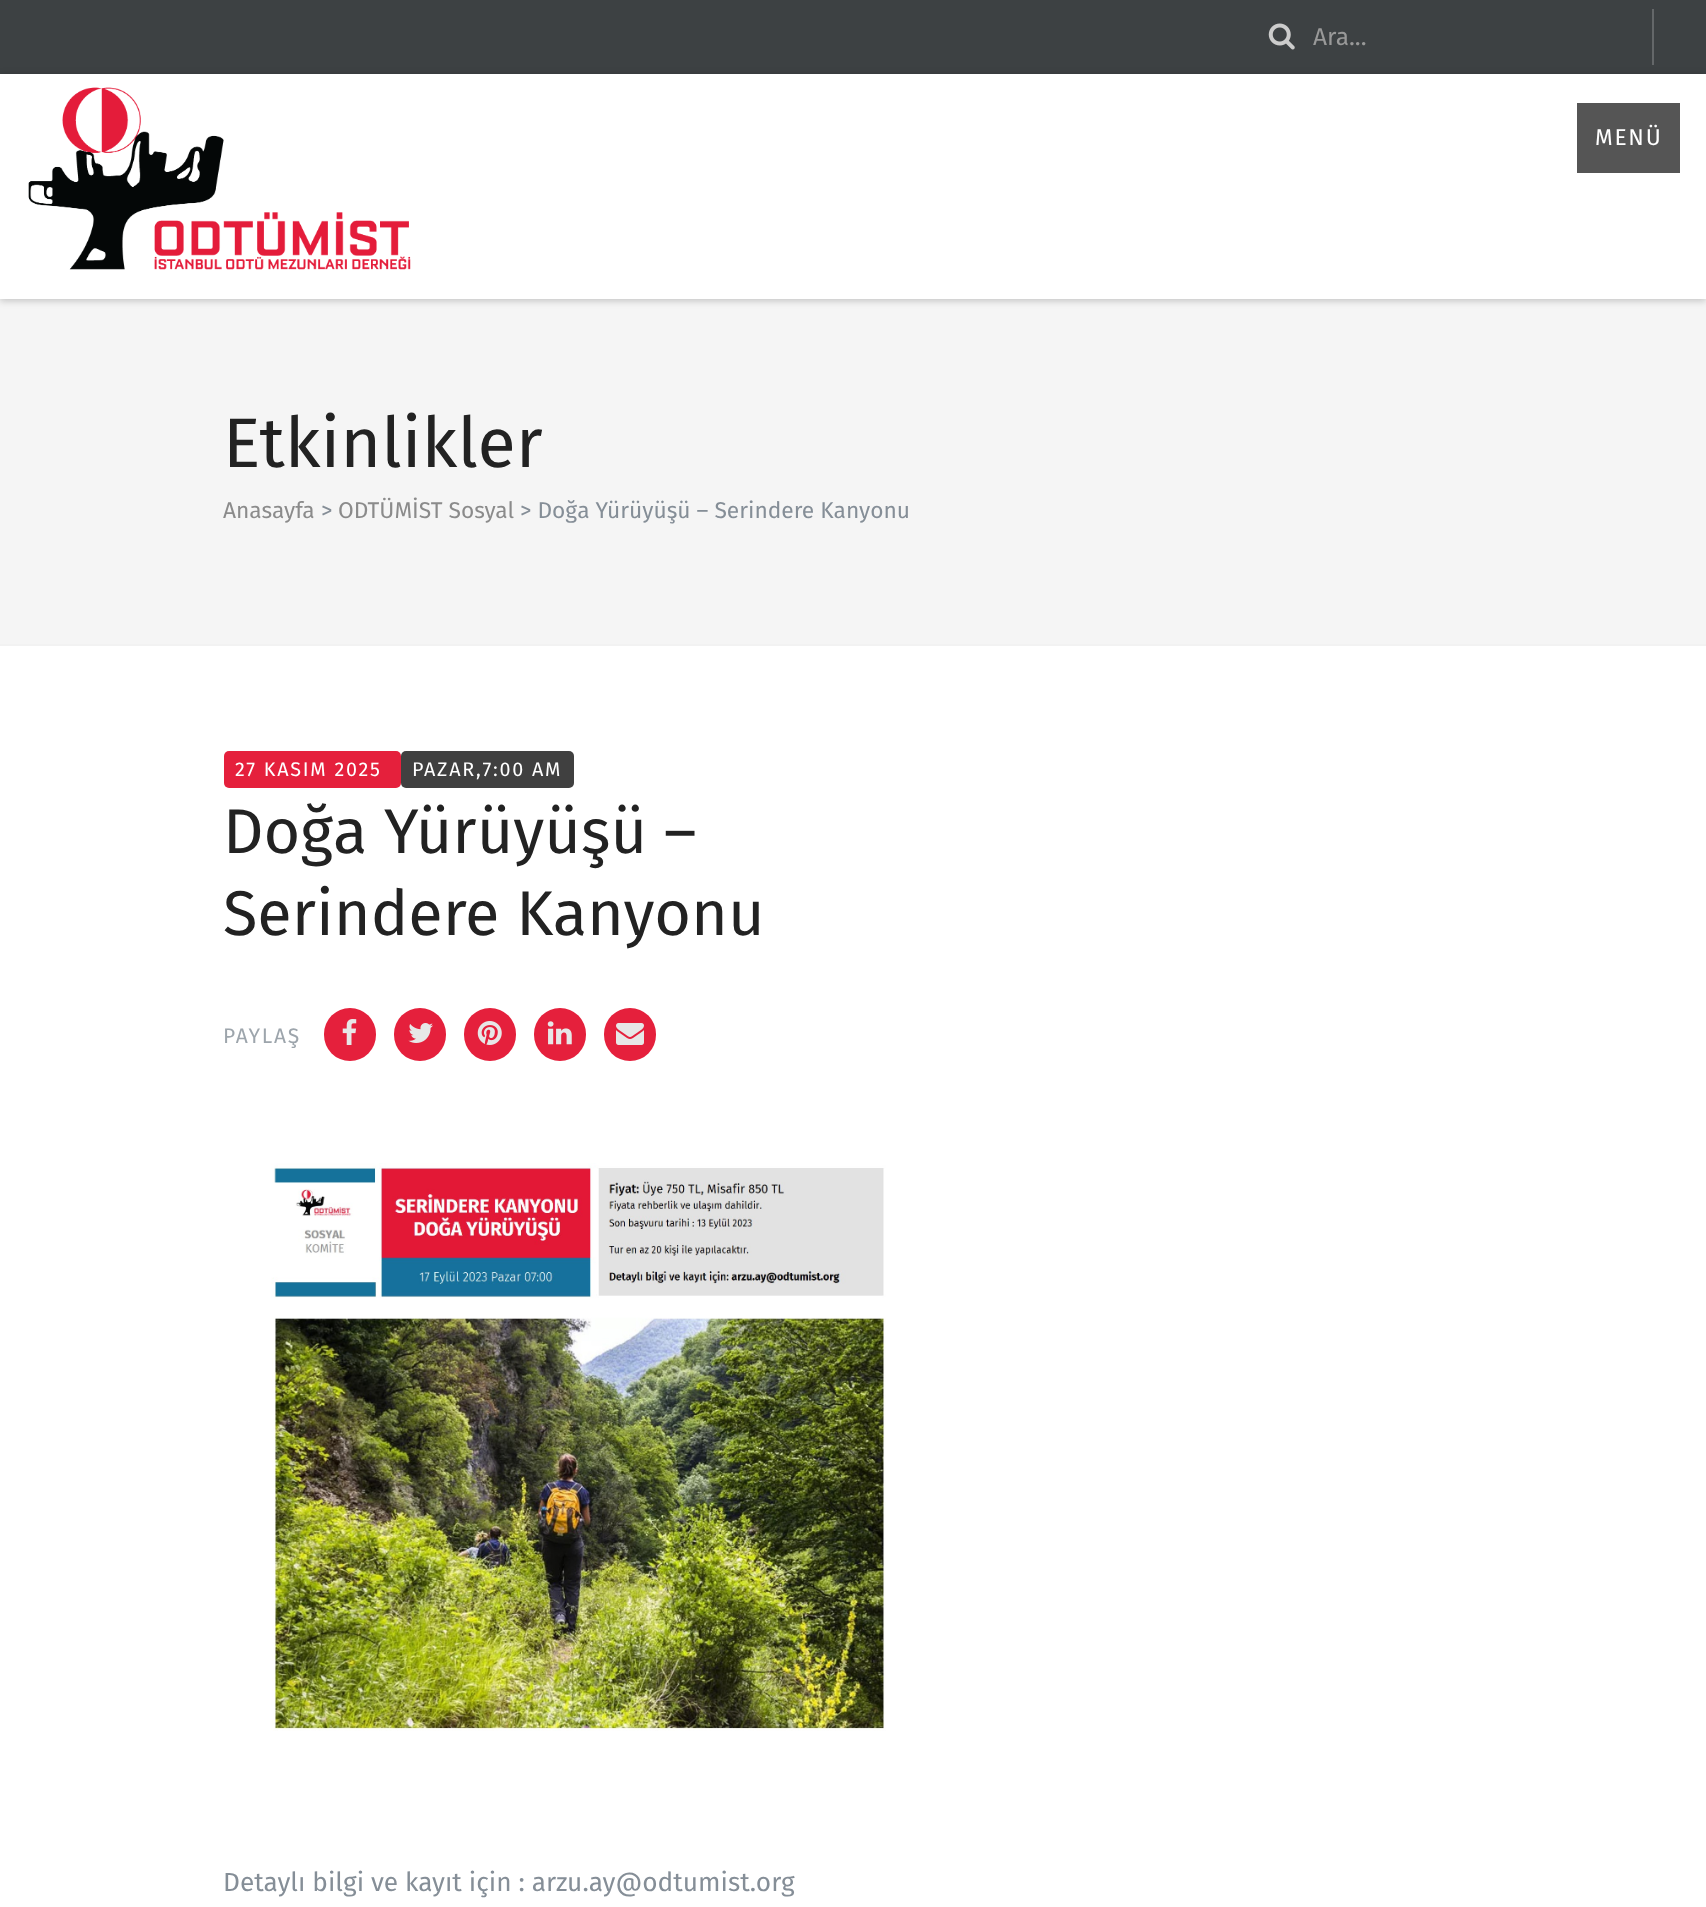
(async () => {
    const canvas = document.querySelector("canvas");
    canvas.width = 1706;
    canvas.height = 1907;
    const context = canvas.getContext("2d");
    context.miterLimit = 4;
    context.fontKerning = "normal";
    function write(s, x, y, font, color) {
        context.font = font;
        context.fillStyle = color;
        context.fillText(s, x, y);
    }
    function block(x, y, w, h, color) {
        context.fillStyle = color;
        context.fillRect(x, y, w, h);
    }
    function card(x, y, w, h, r, color) {
        context.fillStyle = color;
        context.beginPath();
        context.roundRect(x, y, w, h, r);
        context.fill();
    }
    async function photo(src, x, y, w, h) {
        const img = new Image();
        img.src = src;
        await img.decode();
        context.drawImage(img, x, y, w, h);
    }

    block(0, 0, 1706, 1907, "rgb(255, 255, 255)");
    block(0, 0, 1706, 74, "rgb(61, 65, 67)");
    block(1652, 9, 2, 56, "rgb(100, 103, 105)");
    await photo("media/1.png", 1268, 23, 27, 27);
    write("Ara...", 1313, 45, "24.5px Fira Sans", "rgb(153, 153, 153)");
    block(0, 299, 1706, 345, "rgb(245, 245, 245)");
    context.save();
    context.beginPath();
    context.moveTo(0, 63);
    context.lineTo(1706, 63);
    context.lineTo(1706, 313);
    context.lineTo(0, 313);
    context.closePath();
    context.moveTo(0, 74);
    context.lineTo(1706, 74);
    context.lineTo(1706, 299);
    context.lineTo(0, 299);
    context.closePath();
    context.clip("evenodd");
    context.fillStyle = "rgba(0, 0, 0, 0.2)";
    context.filter = "blur(3.5px)";
    context.beginPath();
    context.rect(0, 75, 1706, 226);
    context.fill();
    context.filter = "none";
    context.restore();
    await photo("media/2.png", 28, 87, 383, 183);
    block(1577, 103, 103, 70, "rgb(85, 85, 85)");
    context.letterSpacing = "1.75px";
    write("MENÜ", 1595, 145, "22.75px Fira Sans", "rgb(255, 255, 255)");
    block(0, 644, 1706, 2, "rgb(242, 242, 242)");
    context.letterSpacing = "0px";
    write("Etkinlikler", 223, 467, "70px Fira Sans", "rgb(34, 34, 34)");
    write("Anasayfa", 223, 518, "22.75px Fira Sans", "rgb(139, 139, 139)");
    write(">", 321, 518, "22.75px Fira Sans", "rgb(133, 142, 151)");
    write("ODTÜMİST Sosyal", 338, 518, "22.75px Fira Sans", "rgb(139, 139, 139)");
    write("> Doğa Yürüyüşü – Serindere Kanyonu", 520, 518, "22.75px Fira Sans", "rgb(133, 142, 151)");
    card(224, 751, 177, 37, 5, "rgb(229, 32, 60)");
    context.letterSpacing = "1.75px";
    write("27 KASIM 2025", 235, 776, "19.75px Fira Sans", "rgb(255, 255, 255)");
    card(401, 751, 173, 37, 5, "rgb(64, 64, 64)");
    write("PAZAR,7:00 AM", 412, 776, "19.75px Fira Sans", "rgb(255, 255, 255)");
    context.letterSpacing = "0px";
    write("Doğa Yürüyüşü –", 223, 853, "63px Fira Sans", "rgb(34, 34, 34)");
    write("Serindere Kanyonu", 223, 935, "63px Fira Sans", "rgb(34, 34, 34)");
    context.letterSpacing = "1.75px";
    write("PAYLAŞ", 223, 1043, "21px Fira Sans", "rgb(157, 165, 172)");
    card(324, 1008, 52, 53, 26, "rgb(229, 32, 60)");
    await photo("media/3.png", 342, 1019, 15, 26);
    card(394, 1008, 52, 53, 26, "rgb(229, 32, 60)");
    await photo("media/4.png", 408, 1023, 25, 20);
    card(464, 1008, 52, 53, 26, "rgb(229, 32, 60)");
    await photo("media/5.png", 477, 1021, 25, 24);
    card(534, 1008, 52, 53, 26, "rgb(229, 32, 60)");
    await photo("media/6.png", 547, 1021, 25, 24);
    card(604, 1008, 52, 53, 26, "rgb(229, 32, 60)");
    await photo("media/7.png", 616, 1023, 28, 22);
    await photo("media/8.png", 271, 1163, 615, 568);
    context.letterSpacing = "0px";
    write("Detaylı bilgi ve kayıt için : arzu.ay@odtumist.org", 223, 1891, "26.25px Fira Sans", "rgb(133, 142, 151)");
})();
